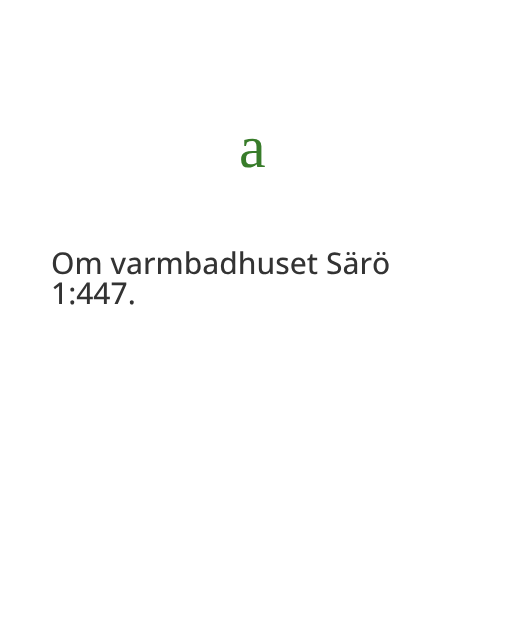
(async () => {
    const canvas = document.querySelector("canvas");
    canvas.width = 505;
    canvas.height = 620;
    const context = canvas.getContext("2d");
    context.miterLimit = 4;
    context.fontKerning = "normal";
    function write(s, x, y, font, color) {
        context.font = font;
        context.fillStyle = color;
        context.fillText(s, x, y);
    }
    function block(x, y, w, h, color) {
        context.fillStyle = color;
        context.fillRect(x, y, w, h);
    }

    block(0, 0, 505, 620, "rgb(255, 255, 255)");
    write("a", 239, 167, "60px Liberation Serif", "rgb(56, 124, 42)");
    write("Om varmbadhuset Särö", 51, 274, "500 30px Open Sans", "rgb(51, 51, 51)");
    write("1:447.", 51, 304, "500 30px Open Sans", "rgb(51, 51, 51)");
})();
